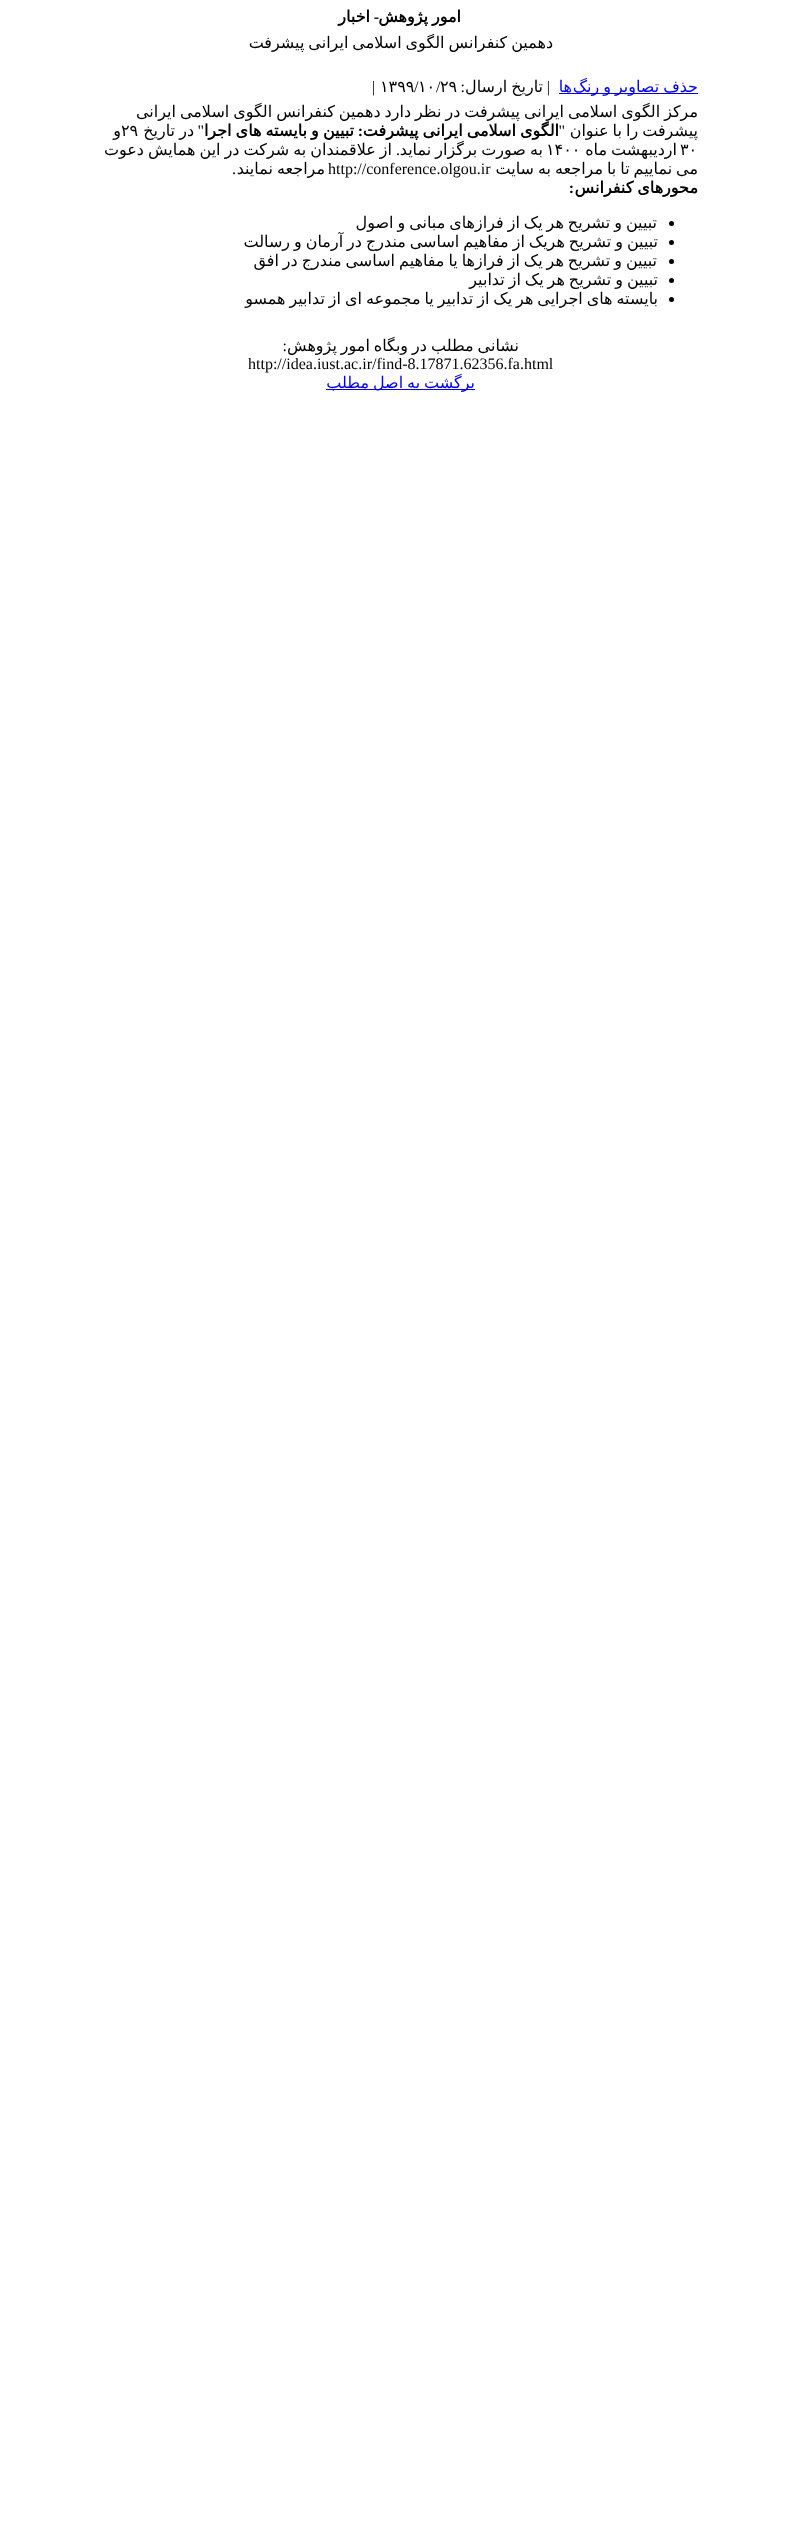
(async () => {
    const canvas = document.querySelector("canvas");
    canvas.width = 801;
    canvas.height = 2527;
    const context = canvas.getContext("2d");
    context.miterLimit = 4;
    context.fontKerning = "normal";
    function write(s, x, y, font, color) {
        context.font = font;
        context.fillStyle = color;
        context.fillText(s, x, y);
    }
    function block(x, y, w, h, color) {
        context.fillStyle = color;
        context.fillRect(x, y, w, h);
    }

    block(0, 0, 801, 2527, "rgb(255, 255, 255)");
    context.wordSpacing = "-1.1px";
    context.direction = "rtl";
    write("امور پژوهش", 461, 22, "bold 16px DejaVu Sans", "rgb(0, 0, 0)");
    context.wordSpacing = "0px";
    write("-", 379, 22, "bold 16px Liberation Serif", "rgb(0, 0, 0)");
    write("اخبار", 370, 22, "bold 16px DejaVu Sans", "rgb(0, 0, 0)");
    context.wordSpacing = "-1.1px";
    write("دهمین کنفرانس الگوی اسلامی ایرانی پیشرفت", 553, 48, "16px DejaVu Sans", "rgb(0, 0, 0)");
    block(559, 93, 139, 1, "rgb(0, 0, 238)");
    write("حذف تصاویر و رنگ", 698, 92, "16px DejaVu Sans", "rgb(0, 0, 238)");
    context.wordSpacing = "0px";
    write("ها", 572, 92, "16px DejaVu Sans", "rgb(0, 0, 238)");
    write("|", 550, 92, "16px Liberation Serif", "rgb(0, 0, 0)");
    context.wordSpacing = "-1px";
    write("تاریخ ارسال", 543, 92, "16px DejaVu Sans", "rgb(0, 0, 0)");
    context.wordSpacing = "0px";
    write(":", 465, 92, "16px Liberation Serif", "rgb(0, 0, 0)");
    context.direction = "ltr";
    write("/", 436, 92, "16px Liberation Serif", "rgb(0, 0, 0)");
    write("۲۹", 440, 92, "16px DejaVu Sans", "rgb(0, 0, 0)");
    write("۱۰", 418, 92, "16px DejaVu Sans", "rgb(0, 0, 0)");
    write("/", 414, 92, "16px Liberation Serif", "rgb(0, 0, 0)");
    write("۱۳۹۹", 380, 92, "16px DejaVu Sans", "rgb(0, 0, 0)");
    write("|", 372, 92, "16px Liberation Serif", "rgb(0, 0, 0)");
    context.wordSpacing = "-1.1px";
    context.direction = "rtl";
    write("مرکز الگوی اسلامی ایرانی پیشرفت در نظر دارد دهمین کنفرانس الگوی اسلامی ایرانی", 698, 117, "16px DejaVu Sans", "rgb(0, 0, 0)");
    context.wordSpacing = "-1px";
    write("پیشرفت را با عنوان", 698, 136, "16px DejaVu Sans", "rgb(0, 0, 0)");
    context.wordSpacing = "0px";
    write("\"", 565, 136, "16px Liberation Serif", "rgb(0, 0, 0)");
    context.wordSpacing = "-1px";
    write("الگوی اسلامی ایرانی پیشرفت", 559, 136, "bold 16px DejaVu Sans", "rgb(0, 0, 0)");
    write("تبیین و بایسته های اجرا", 354, 136, "bold 16px DejaVu Sans", "rgb(0, 0, 0)");
    context.wordSpacing = "0px";
    write("\"", 204, 136, "16px Liberation Serif", "rgb(0, 0, 0)");
    context.wordSpacing = "-1px";
    write("در تاریخ", 194, 136, "16px DejaVu Sans", "rgb(0, 0, 0)");
    context.wordSpacing = "0px";
    context.direction = "ltr";
    write("۲۹", 121, 136, "16px DejaVu Sans", "rgb(0, 0, 0)");
    context.direction = "rtl";
    write(":", 363, 136, "bold 16px Liberation Serif", "rgb(0, 0, 0)");
    write("و", 121, 136, "16px DejaVu Sans", "rgb(0, 0, 0)");
    context.direction = "ltr";
    write("۳۰", 680, 155, "16px DejaVu Sans", "rgb(0, 0, 0)");
    context.wordSpacing = "-1px";
    context.direction = "rtl";
    write("اردیبهشت ماه", 677, 155, "16px DejaVu Sans", "rgb(0, 0, 0)");
    context.wordSpacing = "0px";
    context.direction = "ltr";
    write("۱۴۰۰", 546, 155, "16px DejaVu Sans", "rgb(0, 0, 0)");
    context.wordSpacing = "-1px";
    context.direction = "rtl";
    write("به صورت برگزار نماید", 543, 155, "16px DejaVu Sans", "rgb(0, 0, 0)");
    context.wordSpacing = "0px";
    write(".", 400, 155, "16px Liberation Serif", "rgb(0, 0, 0)");
    context.wordSpacing = "-1px";
    write("از علاقمندان به شرکت در این همایش دعوت", 392, 155, "16px DejaVu Sans", "rgb(0, 0, 0)");
    context.wordSpacing = "-1.1px";
    write("می نماییم تا با مراجعه به سایت", 698, 174, "16px DejaVu Sans", "rgb(0, 0, 0)");
    context.wordSpacing = "0px";
    context.direction = "ltr";
    write("http://conference.olgou.ir", 328, 174, "16px Liberation Serif", "rgb(0, 0, 0)");
    context.wordSpacing = "-1px";
    context.direction = "rtl";
    write("مراجعه نمایند", 325, 174, "16px DejaVu Sans", "rgb(0, 0, 0)");
    context.wordSpacing = "0px";
    write(".", 236, 174, "16px Liberation Serif", "rgb(0, 0, 0)");
    context.wordSpacing = "-1.1px";
    write("محورهای کنفرانس", 698, 193, "bold 16px DejaVu Sans", "rgb(0, 0, 0)");
    context.wordSpacing = "0px";
    write(":", 574, 193, "bold 16px Liberation Serif", "rgb(0, 0, 0)");
    context.beginPath();
    context.arc(671.5, 223.5, 2.5, 0, Math.PI * 2);
    context.fill();
    context.wordSpacing = "-1.1px";
    write("تبیین و تشریح هر یک از فرازهای مبانی و اصول", 657, 228, "16px DejaVu Sans", "rgb(0, 0, 0)");
    context.beginPath();
    context.arc(671.5, 242.5, 2.5, 0, Math.PI * 2);
    context.fill();
    write("تبیین و تشریح هریک از مفاهیم اساسی مندرج در آرمان و رسالت", 658, 247, "16px DejaVu Sans", "rgb(0, 0, 0)");
    context.beginPath();
    context.arc(671.5, 261.5, 2.5, 0, Math.PI * 2);
    context.fill();
    write("تبیین و تشریح هر یک از فرازها یا مفاهیم اساسی مندرج در افق", 657, 266, "16px DejaVu Sans", "rgb(0, 0, 0)");
    context.beginPath();
    context.arc(671.5, 280.5, 2.5, 0, Math.PI * 2);
    context.fill();
    write("تبیین و تشریح هر یک از تدابیر", 658, 285, "16px DejaVu Sans", "rgb(0, 0, 0)");
    context.beginPath();
    context.arc(671.5, 299.5, 2.5, 0, Math.PI * 2);
    context.fill();
    write("بایسته های اجرایی هر یک از تدابیر یا مجموعه ای از تدابیر همسو", 658, 304, "16px DejaVu Sans", "rgb(0, 0, 0)");
    write("نشانی مطلب در وبگاه امور پژوهش", 519, 351, "16px DejaVu Sans", "rgb(0, 0, 0)");
    context.wordSpacing = "0px";
    write(":", 287, 351, "16px Liberation Serif", "rgb(0, 0, 0)");
    context.direction = "ltr";
    write("http://idea.iust.ac.ir/find-8.17871.62356.fa.html", 248, 369, "16px Liberation Serif", "rgb(0, 0, 0)");
    block(326, 389, 149, 1, "rgb(0, 0, 238)");
    context.wordSpacing = "-1.1px";
    context.direction = "rtl";
    write("برگشت به اصل مطلب", 475, 388, "16px DejaVu Sans", "rgb(0, 0, 238)");
})();
